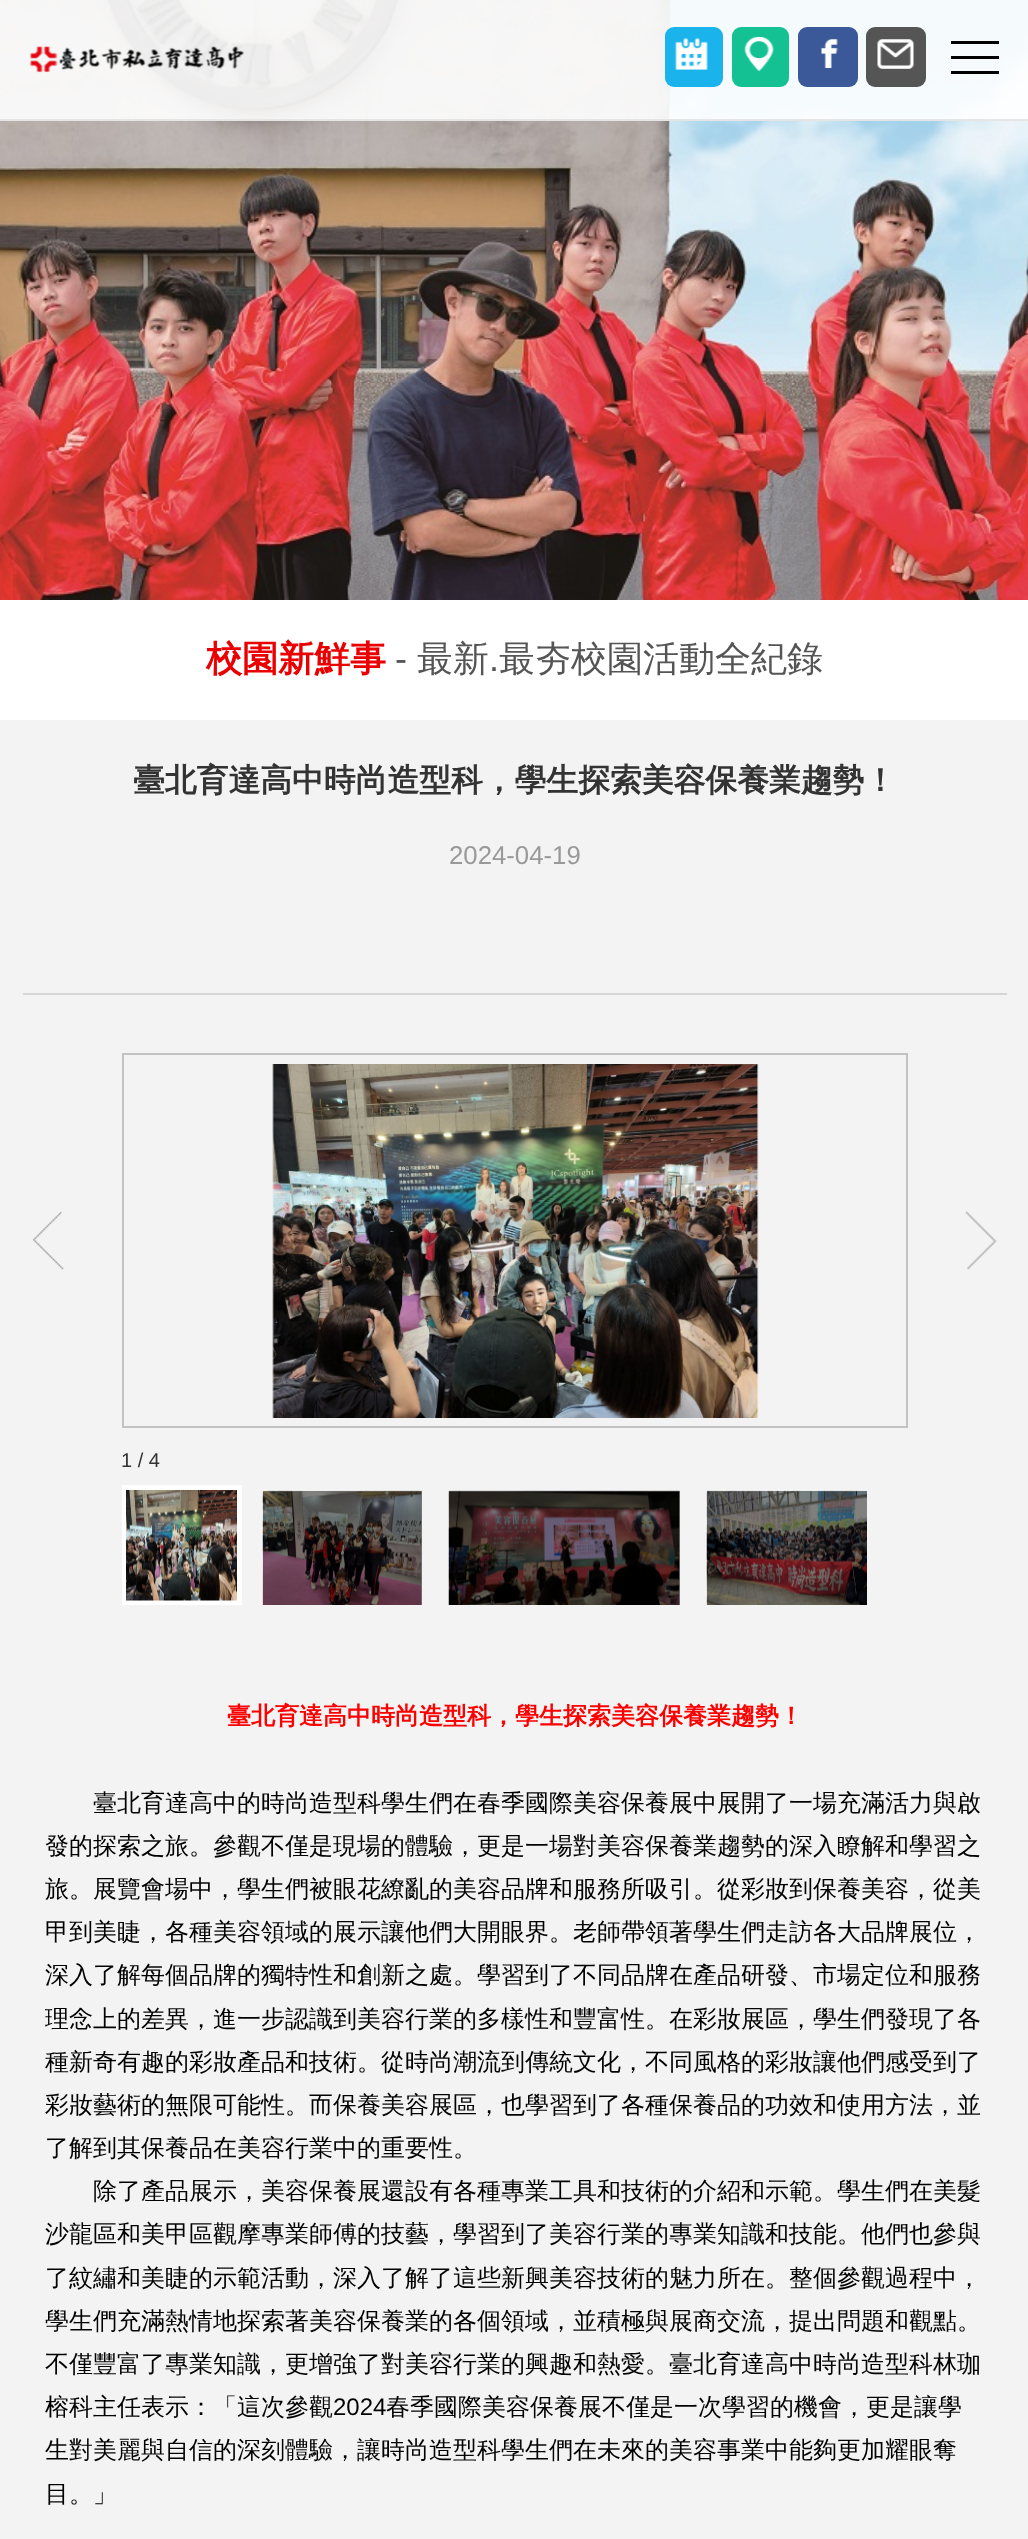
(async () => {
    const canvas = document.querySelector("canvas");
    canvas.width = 1028;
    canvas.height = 2539;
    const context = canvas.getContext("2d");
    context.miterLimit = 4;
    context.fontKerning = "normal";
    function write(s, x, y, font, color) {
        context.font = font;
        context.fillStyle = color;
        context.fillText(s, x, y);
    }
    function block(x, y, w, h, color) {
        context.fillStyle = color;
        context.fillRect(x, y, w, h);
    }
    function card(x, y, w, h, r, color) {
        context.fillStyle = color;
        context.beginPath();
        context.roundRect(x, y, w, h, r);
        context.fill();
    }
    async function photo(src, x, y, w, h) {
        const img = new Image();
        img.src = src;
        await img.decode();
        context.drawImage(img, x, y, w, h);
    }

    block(0, 0, 1028, 2539, "rgb(243, 243, 243)");
    await photo("media/6.png", 0, 0, 1028, 600);
    block(0, 0, 1028, 119, "rgba(255, 255, 255, 0.9)");
    block(0, 119, 1028, 2, "rgb(229, 229, 229)");
    await photo("media/1.png", 30, 46, 214, 27);
    card(665, 27, 58, 60, 9, "rgb(26, 179, 236)");
    await photo("media/2.png", 675, 38, 33, 32);
    card(732, 27, 57, 60, 9, "rgb(20, 193, 146)");
    await photo("media/3.png", 744, 36, 30, 36);
    card(798, 27, 60, 60, 9, "rgb(59, 89, 152)");
    await photo("media/4.png", 821, 39, 17, 29);
    card(866, 27, 60, 60, 9, "rgb(85, 85, 85)");
    await photo("media/5.png", 877, 39, 37, 30);
    block(951, 41, 48, 3, "rgb(0, 0, 0)");
    block(951, 56, 48, 3, "rgb(0, 0, 0)");
    block(951, 71, 48, 3, "rgb(0, 0, 0)");
    block(707, 1491, 160, 1, "rgb(122, 122, 122)");
    block(449, 1491, 231, 114, "rgb(122, 122, 122)");
    block(263, 1491, 159, 114, "rgb(122, 122, 122)");
    block(0, 600, 1028, 120, "rgb(255, 255, 255)");
    write("校園新鮮事", 206, 671, "bold 36px WenQuanYi Zen Hei", "rgb(234, 0, 0)");
    write("-", 395, 671, "36px Liberation Sans", "rgb(85, 85, 85)");
    write("最新", 417, 671, "500 36px WenQuanYi Zen Hei", "rgb(85, 85, 85)");
    write("最夯校園活動全紀錄", 499, 671, "500 36px WenQuanYi Zen Hei", "rgb(85, 85, 85)");
    write(".", 489, 671, "36px Liberation Sans", "rgb(85, 85, 85)");
    block(23, 993, 984, 2, "rgb(214, 212, 212)");
    write("臺北育達高中時尚造型科，學生探索美容保養業趨勢！", 133, 791, "bold 31.8px WenQuanYi Zen Hei", "rgb(51, 51, 51)");
    write("2024-04-19", 449, 864, "25.75px Liberation Sans", "rgb(153, 153, 153)");
    context.strokeStyle = "rgb(194, 194, 194)";
    context.lineWidth = 2;
    context.strokeRect(123, 1054, 784, 373);
    await photo("media/7.png", 32, 1211, 32, 59);
    await photo("media/8.png", 272, 1064, 487, 354);
    await photo("media/9.png", 965, 1211, 32, 59);
    write("1 / 4", 121, 1467, "20px Liberation Sans", "rgb(51, 51, 51)");
    context.strokeStyle = "rgb(255, 255, 255)";
    context.lineWidth = 5;
    context.strokeRect(124.5, 1487.5, 115, 115);
    await photo("media/10.png", 126, 1490, 111, 111);
    await photo("media/11.png", 262, 1490, 160, 115);
    await photo("media/12.png", 448, 1490, 232, 115);
    await photo("media/13.png", 706, 1490, 161, 115);
    write("臺北育達高中時尚造型科，學生探索美容保養業趨勢！", 227, 1724, "bold 24px WenQuanYi Zen Hei", "rgb(255, 0, 0)");
    write("臺北育達高中的時尚造型科學生們在春季國際美容保養展中展開了一場充滿活力與啟", 93, 1811, "500 24px WenQuanYi Zen Hei", "rgb(0, 0, 0)");
    write("發的探索之旅。參觀不僅是現場的體驗，更是一場對美容保養業趨勢的深入瞭解和學習之", 45, 1854, "500 24px WenQuanYi Zen Hei", "rgb(0, 0, 0)");
    write("旅。展覽會場中，學生們被眼花繚亂的美容品牌和服務所吸引。從彩妝到保養美容，從美", 45, 1897, "500 24px WenQuanYi Zen Hei", "rgb(0, 0, 0)");
    write("甲到美睫，各種美容領域的展示讓他們大開眼界。老師帶領著學生們走訪各大品牌展位，", 45, 1940, "500 24px WenQuanYi Zen Hei", "rgb(0, 0, 0)");
    write("深入了解每個品牌的獨特性和創新之處。學習到了不同品牌在產品研發、市場定位和服務", 45, 1983, "500 24px WenQuanYi Zen Hei", "rgb(0, 0, 0)");
    write("理念上的差異，進一步認識到美容行業的多樣性和豐富性。在彩妝展區，學生們發現了各", 45, 2027, "500 24px WenQuanYi Zen Hei", "rgb(0, 0, 0)");
    write("種新奇有趣的彩妝產品和技術。從時尚潮流到傳統文化，不同風格的彩妝讓他們感受到了", 45, 2070, "500 24px WenQuanYi Zen Hei", "rgb(0, 0, 0)");
    write("彩妝藝術的無限可能性。而保養美容展區，也學習到了各種保養品的功效和使用方法，並", 45, 2113, "500 24px WenQuanYi Zen Hei", "rgb(0, 0, 0)");
    write("了解到其保養品在美容行業中的重要性。", 45, 2156, "500 24px WenQuanYi Zen Hei", "rgb(0, 0, 0)");
    write("除了產品展示，美容保養展還設有各種專業工具和技術的介紹和示範。學生們在美髮", 93, 2199, "500 24px WenQuanYi Zen Hei", "rgb(0, 0, 0)");
    write("沙龍區和美甲區觀摩專業師傅的技藝，學習到了美容行業的專業知識和技能。他們也參與", 45, 2242, "500 24px WenQuanYi Zen Hei", "rgb(0, 0, 0)");
    write("了紋繡和美睫的示範活動，深入了解了這些新興美容技術的魅力所在。整個參觀過程中，", 45, 2286, "500 24px WenQuanYi Zen Hei", "rgb(0, 0, 0)");
    write("學生們充滿熱情地探索著美容保養業的各個領域，並積極與展商交流，提出問題和觀點。", 45, 2329, "500 24px WenQuanYi Zen Hei", "rgb(0, 0, 0)");
    write("不僅豐富了專業知識，更增強了對美容行業的興趣和熱愛。臺北育達高中時尚造型科林珈", 45, 2372, "500 24px WenQuanYi Zen Hei", "rgb(0, 0, 0)");
    write("榕科主任表示：「這次參觀", 45, 2415, "500 24px WenQuanYi Zen Hei", "rgb(0, 0, 0)");
    write("2024", 333, 2415, "24px Liberation Sans", "rgb(0, 0, 0)");
    write("春季國際美容保養展不僅是一次學習的機會，更是讓學", 386, 2415, "500 24px WenQuanYi Zen Hei", "rgb(0, 0, 0)");
    write("生對美麗與自信的深刻體驗，讓時尚造型科學生們在未來的美容事業中能夠更加耀眼奪", 45, 2458, "500 24px WenQuanYi Zen Hei", "rgb(0, 0, 0)");
    write("目。」", 45, 2502, "500 24px WenQuanYi Zen Hei", "rgb(0, 0, 0)");
})();
